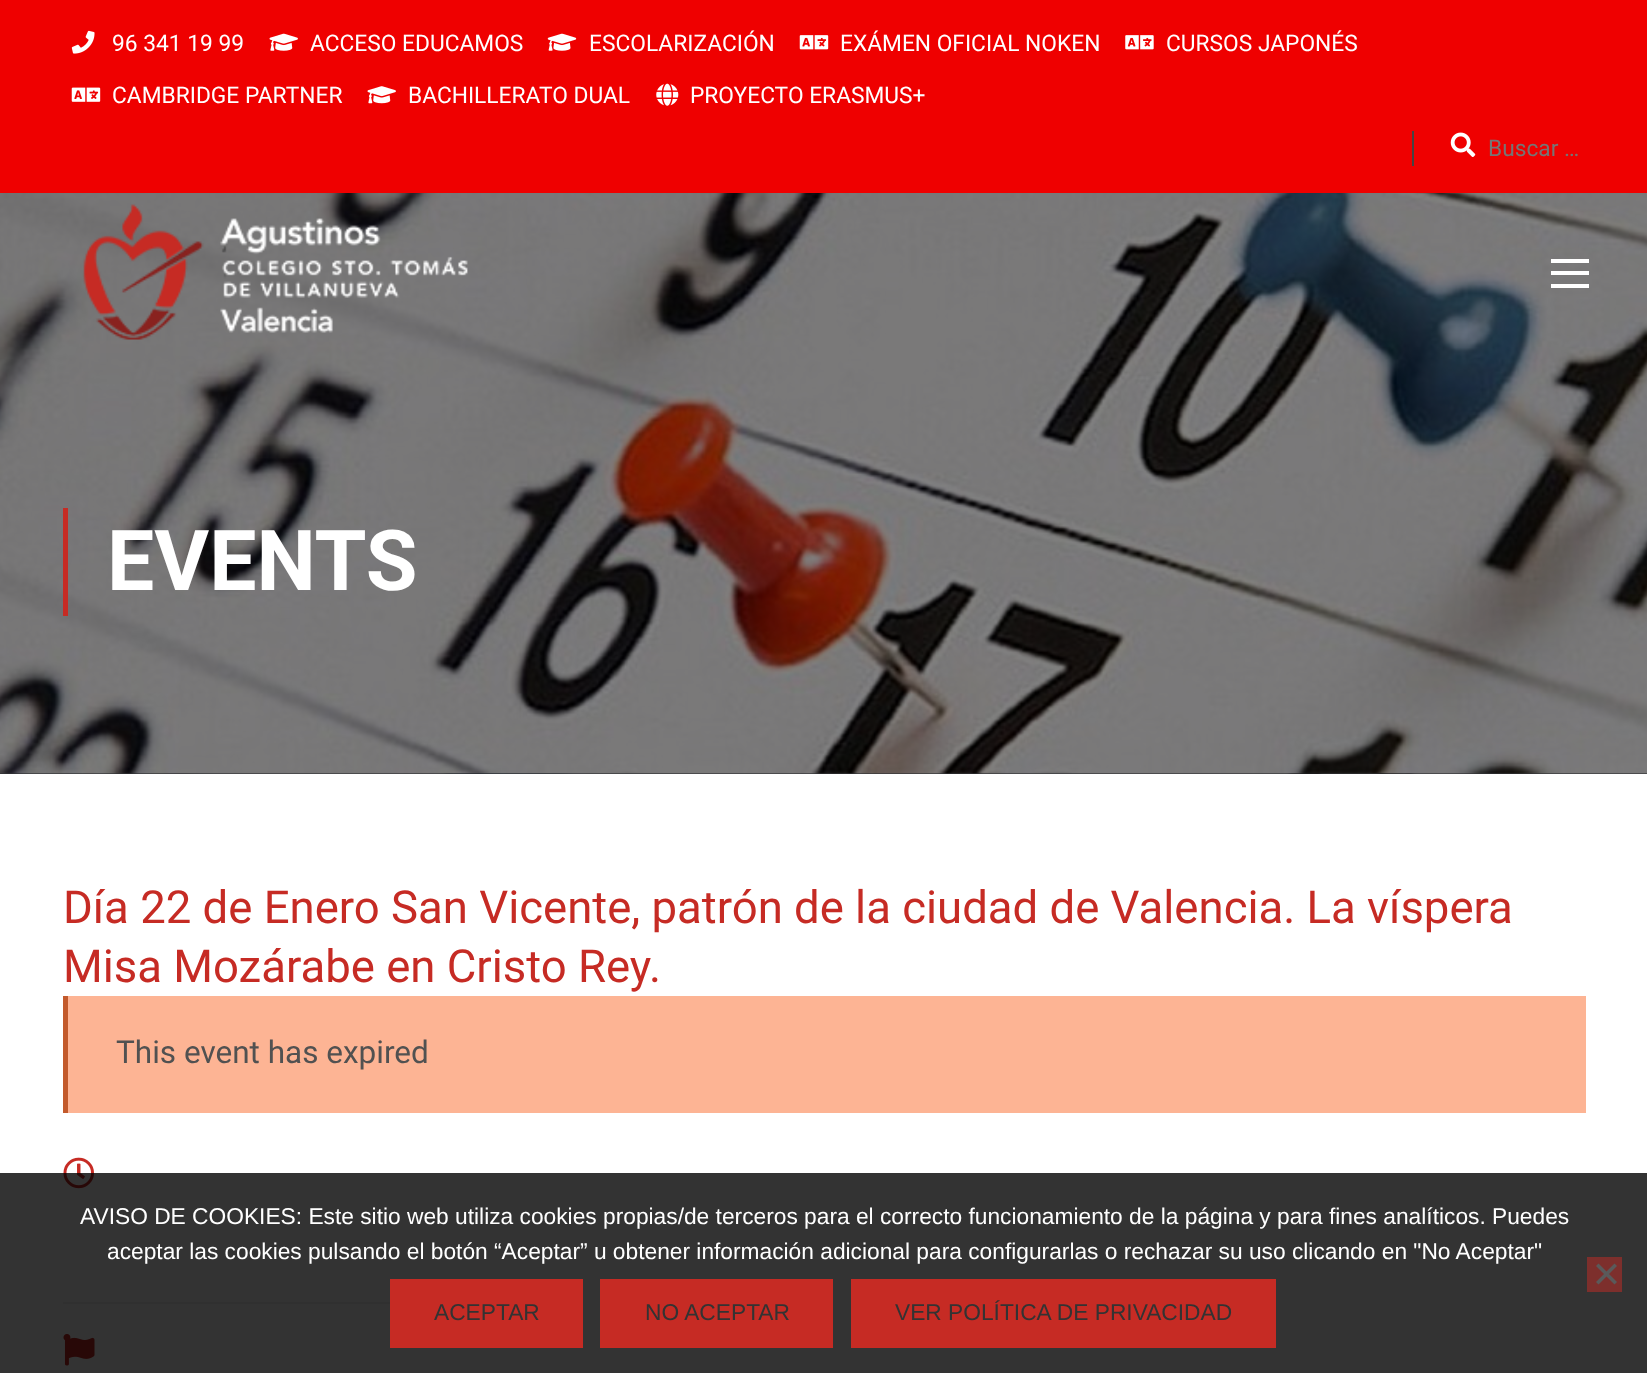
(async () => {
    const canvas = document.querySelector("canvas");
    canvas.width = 1647;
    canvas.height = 1373;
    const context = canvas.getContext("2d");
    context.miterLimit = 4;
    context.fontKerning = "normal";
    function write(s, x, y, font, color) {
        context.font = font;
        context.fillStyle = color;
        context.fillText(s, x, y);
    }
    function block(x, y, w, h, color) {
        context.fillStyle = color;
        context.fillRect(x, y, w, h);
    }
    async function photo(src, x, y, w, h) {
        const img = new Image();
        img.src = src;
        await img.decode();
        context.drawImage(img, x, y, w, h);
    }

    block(0, 0, 1647, 1373, "rgb(255, 255, 255)");
    block(0, 0, 1647, 193, "rgb(239, 0, 0)");
    await photo("media/1.png", 71, 30, 24, 24);
    write("96 341 19 99", 112, 51, "22.75px Roboto", "rgb(255, 255, 255)");
    await photo("media/2.png", 269, 33, 29, 18);
    write("ACCESO EDUCAMOS", 310, 51, "22.75px Roboto", "rgb(255, 255, 255)");
    await photo("media/3.png", 547, 33, 30, 18);
    write("ESCOLARIZACIÓN", 589, 51, "22.75px Roboto", "rgb(255, 255, 255)");
    await photo("media/4.png", 799, 35, 30, 15);
    write("EXÁMEN OFICIAL NOKEN", 840, 51, "22.75px Roboto", "rgb(255, 255, 255)");
    await photo("media/5.png", 1125, 35, 29, 15);
    write("CURSOS JAPONÉS", 1166, 51, "22.75px Roboto", "rgb(255, 255, 255)");
    await photo("media/6.png", 71, 87, 30, 15);
    write("CAMBRIDGE PARTNER", 112, 103, "22.75px Roboto", "rgb(255, 255, 255)");
    await photo("media/7.png", 367, 86, 29, 18);
    write("BACHILLERATO DUAL", 408, 103, "22.75px Roboto", "rgb(255, 255, 255)");
    await photo("media/8.png", 656, 83, 23, 23);
    write("PROYECTO ERASMUS+", 690, 103, "22.75px Roboto", "rgb(255, 255, 255)");
    block(1412, 131, 2, 35, "rgb(68, 68, 68)");
    await photo("media/9.png", 1450, 132, 26, 25);
    write("Buscar …", 1488, 156, "22.75px Roboto", "rgb(117, 117, 117)");
    block(0, 773, 1647, 1, "rgb(56, 61, 67)");
    await photo("media/11.png", 0, 193, 1647, 581);
    block(0, 193, 1647, 581, "rgba(0, 0, 0, 0.5)");
    await photo("media/10.png", 83, 204, 385, 136);
    block(1551, 259, 38, 4, "rgb(255, 255, 255)");
    block(1551, 271, 38, 4, "rgb(255, 255, 255)");
    block(1551, 284, 38, 4, "rgb(255, 255, 255)");
    block(63, 508, 5, 108, "rgb(198, 43, 36)");
    write("EVENTS", 107, 590, "bold 84px Roboto", "rgb(255, 255, 255)");
    write("Día 22 de Enero San Vicente, patrón de la ciudad de Valencia. La víspera", 63, 923, "45.5px Roboto", "rgb(198, 43, 36)");
    write("Misa Mozárabe en Cristo Rey.", 63, 982, "45.5px Roboto", "rgb(198, 43, 36)");
    block(68, 996, 1518, 117, "rgb(253, 180, 148)");
    block(63, 996, 5, 117, "rgb(195, 90, 44)");
    write("This event has expired", 116, 1063, "31.5px Roboto", "rgb(81, 81, 81)");
    block(63, 1302, 327, 2, "rgb(238, 238, 238)");
    await photo("media/12.png", 63, 1157, 31, 32);
    await photo("media/13.png", 63, 1334, 32, 32);
    block(0, 1173, 1647, 200, "rgba(0, 0, 0, 0.8)");
    write("AVISO DE COOKIES: Este sitio web utiliza cookies propias/de terceros para el correcto funcionamiento de la página y para fines analíticos. Puedes", 80, 1224, "22.75px Liberation Sans", "rgb(255, 255, 255)");
    write("aceptar las cookies pulsando el botón “Aceptar” u obtener información adicional para configurarlas o rechazar su uso clicando en \"No Aceptar\"", 107, 1259, "22.75px Liberation Sans", "rgb(255, 255, 255)");
    block(1587, 1257, 35, 35, "rgb(125, 47, 44)");
    context.fillStyle = "rgb(90, 90, 90)";
    context.beginPath();
    context.moveTo(1614.5, 1263.5);
    context.lineTo(1617, 1266);
    context.lineTo(1598.5, 1284.5);
    context.lineTo(1596, 1282);
    context.closePath();
    context.fill();
    context.beginPath();
    context.moveTo(1596, 1266);
    context.lineTo(1598.5, 1263.5);
    context.lineTo(1617, 1282);
    context.lineTo(1614.5, 1284.5);
    context.closePath();
    context.fill();
    block(390, 1279, 193, 69, "rgb(198, 43, 36)");
    write("ACEPTAR", 434, 1320, "22.75px Liberation Sans", "rgb(51, 51, 51)");
    block(600, 1279, 233, 69, "rgb(198, 43, 36)");
    write("NO ACEPTAR", 645, 1320, "22.75px Liberation Sans", "rgb(51, 51, 51)");
    block(851, 1279, 425, 69, "rgb(198, 43, 36)");
    write("VER POLÍTICA DE PRIVACIDAD", 895, 1320, "22.75px Liberation Sans", "rgb(51, 51, 51)");
})();
